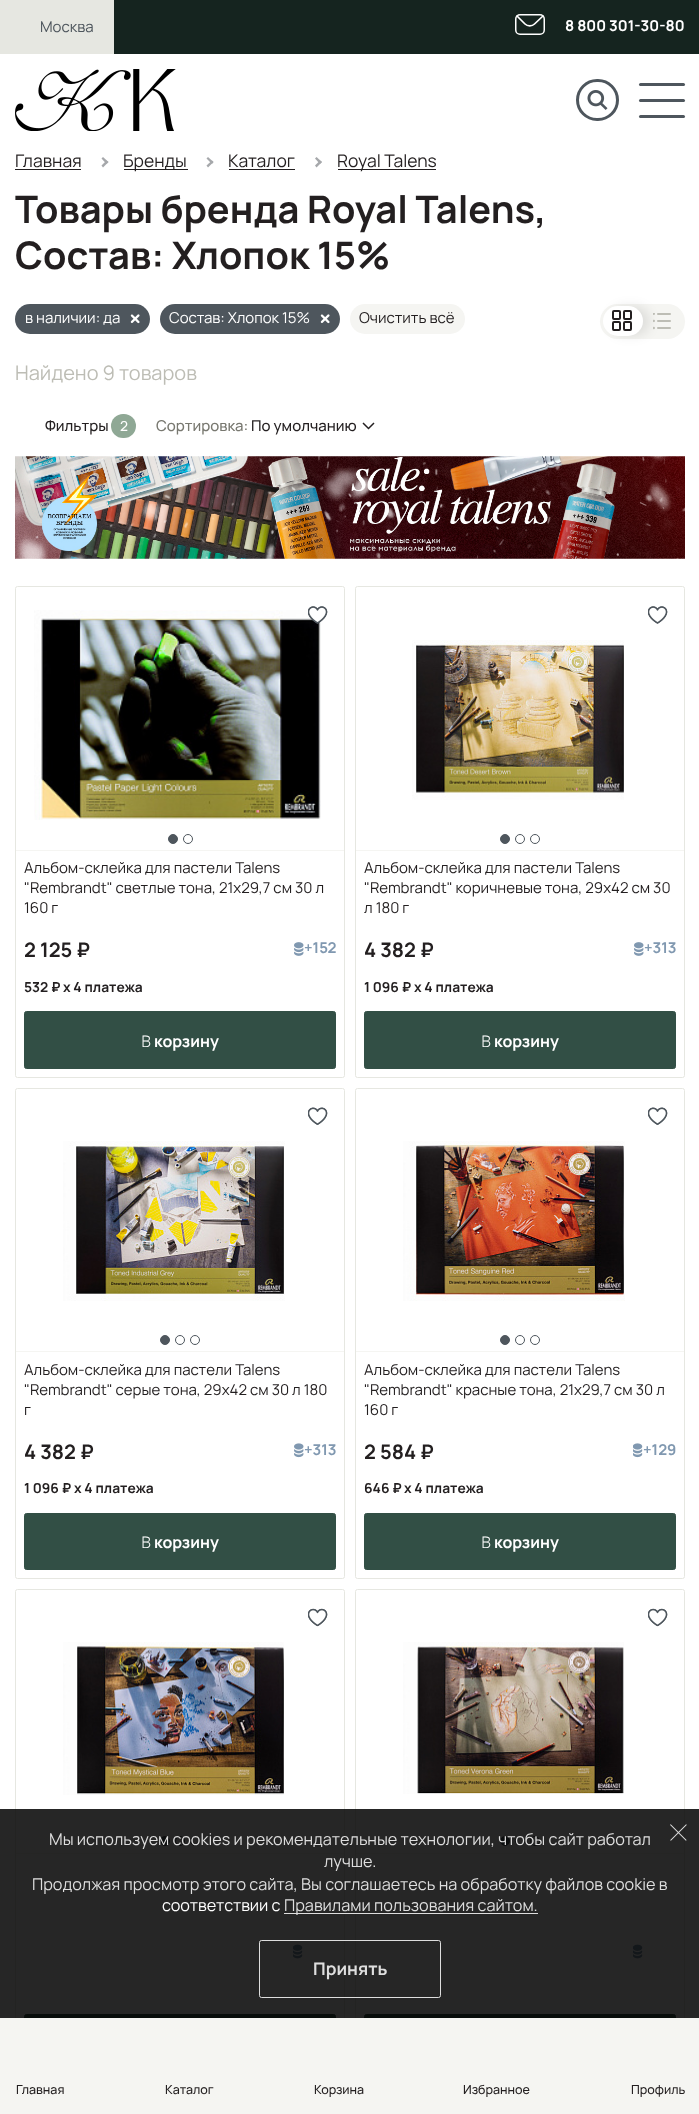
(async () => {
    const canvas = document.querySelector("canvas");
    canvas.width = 699;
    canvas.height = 2114;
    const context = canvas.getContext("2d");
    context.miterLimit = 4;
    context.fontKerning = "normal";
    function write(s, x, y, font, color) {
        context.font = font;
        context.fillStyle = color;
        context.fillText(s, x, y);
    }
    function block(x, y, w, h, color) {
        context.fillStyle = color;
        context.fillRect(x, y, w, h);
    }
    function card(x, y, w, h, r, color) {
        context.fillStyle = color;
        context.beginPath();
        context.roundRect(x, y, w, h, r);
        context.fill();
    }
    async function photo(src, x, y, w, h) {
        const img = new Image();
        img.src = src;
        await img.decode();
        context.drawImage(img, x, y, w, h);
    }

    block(0, 0, 699, 2114, "rgb(255, 255, 255)");
    block(114, 0, 585, 54, "rgb(21, 36, 31)");
    block(0, 0, 114, 54, "rgb(230, 231, 225)");
    write("Москва", 40, 32, "15px Manrope", "rgb(78, 86, 93)");
    context.beginPath();
    context.roundRect(515.75, 14.75, 28.5, 19.5, 4.25);
    context.strokeStyle = "rgb(255, 255, 255)";
    context.lineWidth = 1.5;
    context.stroke();
    context.beginPath();
    context.moveTo(516.5, 15.5);
    context.lineTo(525, 24);
    context.bezierCurveTo(527.5, 26.5, 532, 26.5, 534.5, 24);
    context.lineTo(543.5, 15.5);
    context.lineWidth = 1.7;
    context.stroke();
    write("8 800 301-30-80", 565, 31, "bold 15px Manrope", "rgb(255, 255, 255)");
    await photo("media/1.png", 15, 69, 161, 62);
    await photo("media/2.png", 587, 90, 21, 20);
    context.beginPath();
    context.roundRect(577.5, 80.5, 40, 39, 19.5);
    context.strokeStyle = "rgb(78, 86, 93)";
    context.lineWidth = 3;
    context.stroke();
    card(639, 99, 46, 3, 1.5, "rgb(78, 86, 93)");
    card(639, 83, 46, 3, 1.5, "rgb(78, 86, 93)");
    card(639, 115, 46, 3, 1.5, "rgb(78, 86, 93)");
    write("Главная", 15, 167, "17.5px Manrope", "rgb(35, 31, 32)");
    block(15, 169, 66, 1, "rgb(35, 31, 32)");
    context.fillStyle = "rgb(166, 168, 171)";
    context.beginPath();
    context.moveTo(101.5, 158.5);
    context.lineTo(103, 157);
    context.lineTo(108.5, 162);
    context.lineTo(106.5, 164);
    context.closePath();
    context.fill();
    context.beginPath();
    context.moveTo(101.5, 165.5);
    context.lineTo(106.5, 160.5);
    context.lineTo(108.5, 162);
    context.lineTo(103, 167.5);
    context.closePath();
    context.fill();
    block(124, 169, 64, 1, "rgb(35, 31, 32)");
    write("Бренды", 123, 167, "17.5px Manrope", "rgb(35, 31, 32)");
    context.fillStyle = "rgb(166, 168, 171)";
    context.beginPath();
    context.moveTo(206.5, 158.5);
    context.lineTo(208, 157);
    context.lineTo(213.5, 162);
    context.lineTo(212, 164);
    context.closePath();
    context.fill();
    context.beginPath();
    context.moveTo(206.5, 165.5);
    context.lineTo(212, 160.5);
    context.lineTo(213.5, 162);
    context.lineTo(208, 167.5);
    context.closePath();
    context.fill();
    write("Каталог", 228, 167, "17.5px Manrope", "rgb(35, 31, 32)");
    block(229, 169, 66, 1, "rgb(35, 31, 32)");
    context.fillStyle = "rgb(166, 168, 171)";
    context.beginPath();
    context.moveTo(315, 158.5);
    context.lineTo(316.5, 157);
    context.lineTo(322, 162);
    context.lineTo(320, 164);
    context.closePath();
    context.fill();
    context.beginPath();
    context.moveTo(315, 165.5);
    context.lineTo(320, 160.5);
    context.lineTo(322, 162);
    context.lineTo(316.5, 167.5);
    context.closePath();
    context.fill();
    block(338, 169, 98, 1, "rgb(35, 31, 32)");
    write("Royal Talens", 337, 167, "17.5px Manrope", "rgb(35, 31, 32)");
    write("Товары бренда Royal Talens,", 15, 223, "bold 38px Manrope", "rgb(35, 31, 32)");
    write("Состав: Хлопок 15%", 15, 269, "bold 38px Manrope", "rgb(35, 31, 32)");
    card(15, 304, 135, 30, 15, "rgb(78, 86, 93)");
    await photo("media/3.png", 130, 314, 10, 10);
    write("в наличии: да", 25, 323, "15px Manrope", "rgb(255, 255, 255)");
    card(160, 304, 180, 30, 15, "rgb(78, 86, 93)");
    await photo("media/3.png", 320, 314, 10, 10);
    write("Состав: Хлопок 15%", 169, 323, "15px Manrope", "rgb(255, 255, 255)");
    card(350, 304, 115, 30, 15, "rgb(245, 245, 242)");
    write("Очистить всё", 359, 323, "15px Manrope", "rgb(35, 31, 32)");
    card(600, 304, 85, 35, 17.5, "rgb(245, 245, 242)");
    context.fillStyle = "rgba(0, 0, 0, 0.09)";
    context.filter = "blur(5.5px)";
    context.beginPath();
    context.roundRect(610, 306, 40, 30, 15);
    context.fill();
    context.filter = "none";
    card(603, 306, 40, 30, 15, "rgb(255, 255, 255)");
    context.beginPath();
    context.roundRect(613, 311, 7, 8, 1);
    context.strokeStyle = "rgb(35, 31, 32)";
    context.lineWidth = 2;
    context.stroke();
    context.beginPath();
    context.roundRect(613, 322, 7, 8, 1);
    context.stroke();
    context.beginPath();
    context.roundRect(624, 322, 7, 8, 1);
    context.stroke();
    context.beginPath();
    context.roundRect(624, 311, 7, 8, 1);
    context.stroke();
    await photo("media/4.png", 653, 313, 18, 17);
    write("Найдено 9 товаров", 15, 380, "20px Manrope", "rgb(189, 189, 181)");
    write("Фильтры", 45, 431, "500 15px Manrope", "rgb(35, 31, 32)");
    card(111, 414, 25, 24, 12, "rgb(143, 168, 149)");
    write("2", 120, 431, "500 13.75px Manrope", "rgb(255, 255, 255)");
    write("Сортировка:", 156, 431, "500 15px Manrope", "rgb(120, 120, 112)");
    write("По умолчанию", 251, 431, "500 15px Manrope", "rgb(35, 31, 32)");
    context.beginPath();
    context.moveTo(374, 423);
    context.lineTo(368.5, 428.5);
    context.lineTo(363, 423);
    context.lineWidth = 1.5;
    context.stroke();
    await photo("media/5.png", 15, 456, 670, 103);
    context.beginPath();
    context.roundRect(15.5, 586.5, 329, 491, 2);
    context.strokeStyle = "rgb(230, 231, 225)";
    context.lineWidth = 1;
    context.stroke();
    block(16, 850, 328, 1, "rgb(245, 245, 242)");
    await photo("media/6.png", 34, 610, 287, 210);
    context.fillStyle = "rgb(78, 86, 93)";
    context.beginPath();
    context.arc(173, 839, 4.5, 0, Math.PI * 2);
    context.fill();
    context.strokeStyle = "rgb(78, 86, 93)";
    context.stroke();
    context.beginPath();
    context.arc(188, 839, 4.5, 0, Math.PI * 2);
    context.stroke();
    await photo("media/9.png", 308, 606, 20, 18);
    await photo("media/7.png", 308, 606, 20, 18);
    write("Альбом-склейка для пастели Talens", 24, 873, "15px Manrope", "rgb(35, 31, 32)");
    write("\"Rembrandt\" светлые тона, 21х29,7 см 30 л", 24, 893, "15px Manrope", "rgb(35, 31, 32)");
    write("160 г", 24, 913, "15px Manrope", "rgb(35, 31, 32)");
    write("2 125 ₽", 24, 957, "bold 20px Manrope", "rgb(35, 31, 32)");
    await photo("media/8.png", 294, 942, 10, 14);
    write("+152", 304, 953, "bold 15px Manrope", "rgb(128, 152, 176)");
    write("532 ₽", 24, 992, "bold 13.75px Manrope", "rgb(35, 31, 32)");
    write("x 4 платежа", 63, 992, "bold 13.75px Manrope", "rgb(35, 31, 32)");
    context.fillStyle = "rgb(50, 79, 69)";
    context.beginPath();
    context.roundRect(24.5, 1011.5, 311, 57, 2);
    context.fill();
    context.strokeStyle = "rgb(50, 79, 69)";
    context.stroke();
    write("В", 141, 1047, "300 16px Noto Sans", "rgb(255, 255, 255)");
    write("корзину", 154, 1047, "bold 16px Manrope", "rgb(255, 255, 255)");
    context.beginPath();
    context.roundRect(355.5, 586.5, 329, 491, 2);
    context.strokeStyle = "rgb(230, 231, 225)";
    context.stroke();
    block(356, 850, 328, 1, "rgb(245, 245, 242)");
    await photo("media/10.png", 412, 640, 212, 160);
    context.fillStyle = "rgb(78, 86, 93)";
    context.beginPath();
    context.arc(505, 839, 4.5, 0, Math.PI * 2);
    context.fill();
    context.strokeStyle = "rgb(78, 86, 93)";
    context.stroke();
    context.beginPath();
    context.arc(520, 839, 4.5, 0, Math.PI * 2);
    context.stroke();
    context.beginPath();
    context.arc(535, 839, 4.5, 0, Math.PI * 2);
    context.stroke();
    await photo("media/12.png", 648, 606, 20, 18);
    await photo("media/11.png", 648, 606, 20, 18);
    write("Альбом-склейка для пастели Talens", 364, 873, "15px Manrope", "rgb(35, 31, 32)");
    write("\"Rembrandt\" коричневые тона, 29х42 см 30", 364, 893, "15px Manrope", "rgb(35, 31, 32)");
    write("л 180 г", 364, 913, "15px Manrope", "rgb(35, 31, 32)");
    write("4 382 ₽", 364, 957, "bold 20px Manrope", "rgb(35, 31, 32)");
    await photo("media/8.png", 634, 942, 10, 14);
    write("+313", 644, 953, "bold 15px Manrope", "rgb(128, 152, 176)");
    write("1 096 ₽", 364, 992, "bold 13.75px Manrope", "rgb(35, 31, 32)");
    write("x 4 платежа", 414, 992, "bold 13.75px Manrope", "rgb(35, 31, 32)");
    context.fillStyle = "rgb(50, 79, 69)";
    context.beginPath();
    context.roundRect(364.5, 1011.5, 311, 57, 2);
    context.fill();
    context.strokeStyle = "rgb(50, 79, 69)";
    context.stroke();
    write("В", 481, 1047, "300 16px Noto Sans", "rgb(255, 255, 255)");
    write("корзину", 494, 1047, "bold 16px Manrope", "rgb(255, 255, 255)");
    context.beginPath();
    context.roundRect(15.5, 1088.5, 329, 490, 2);
    context.strokeStyle = "rgb(230, 231, 225)";
    context.stroke();
    block(16, 1351, 328, 1, "rgb(245, 245, 242)");
    await photo("media/13.png", 63, 1141, 222, 160);
    context.fillStyle = "rgb(78, 86, 93)";
    context.beginPath();
    context.arc(165, 1340, 4.5, 0, Math.PI * 2);
    context.fill();
    context.strokeStyle = "rgb(78, 86, 93)";
    context.stroke();
    context.beginPath();
    context.arc(180, 1340, 4.5, 0, Math.PI * 2);
    context.stroke();
    context.beginPath();
    context.arc(195, 1340, 4.5, 0, Math.PI * 2);
    context.stroke();
    await photo("media/16.png", 308, 1107, 20, 18);
    await photo("media/14.png", 308, 1107, 20, 18);
    write("Альбом-склейка для пастели Talens", 24, 1375, "15px Manrope", "rgb(35, 31, 32)");
    write("\"Rembrandt\" серые тона, 29х42 см 30 л 180", 24, 1395, "15px Manrope", "rgb(35, 31, 32)");
    write("г", 24, 1415, "15px Manrope", "rgb(35, 31, 32)");
    write("4 382 ₽", 24, 1459, "bold 20px Manrope", "rgb(35, 31, 32)");
    await photo("media/15.png", 294, 1443, 10, 15);
    write("+313", 304, 1455, "bold 15px Manrope", "rgb(128, 152, 176)");
    write("1 096 ₽", 24, 1493, "bold 13.75px Manrope", "rgb(35, 31, 32)");
    write("x 4 платежа", 74, 1493, "bold 13.75px Manrope", "rgb(35, 31, 32)");
    context.fillStyle = "rgb(50, 79, 69)";
    context.beginPath();
    context.roundRect(24.5, 1513.5, 311, 56, 2);
    context.fill();
    context.strokeStyle = "rgb(50, 79, 69)";
    context.stroke();
    write("В", 141, 1548, "300 16px Noto Sans", "rgb(255, 255, 255)");
    write("корзину", 154, 1548, "bold 16px Manrope", "rgb(255, 255, 255)");
    context.beginPath();
    context.roundRect(355.5, 1088.5, 329, 490, 2);
    context.strokeStyle = "rgb(230, 231, 225)";
    context.stroke();
    block(356, 1351, 328, 1, "rgb(245, 245, 242)");
    await photo("media/17.png", 403, 1141, 222, 160);
    context.fillStyle = "rgb(78, 86, 93)";
    context.beginPath();
    context.arc(505, 1340, 4.5, 0, Math.PI * 2);
    context.fill();
    context.strokeStyle = "rgb(78, 86, 93)";
    context.stroke();
    context.beginPath();
    context.arc(520, 1340, 4.5, 0, Math.PI * 2);
    context.stroke();
    context.beginPath();
    context.arc(535, 1340, 4.5, 0, Math.PI * 2);
    context.stroke();
    await photo("media/16.png", 648, 1107, 20, 18);
    await photo("media/14.png", 648, 1107, 20, 18);
    write("Альбом-склейка для пастели Talens", 364, 1375, "15px Manrope", "rgb(35, 31, 32)");
    write("\"Rembrandt\" красные тона, 21х29,7 см 30 л", 364, 1395, "15px Manrope", "rgb(35, 31, 32)");
    write("160 г", 364, 1415, "15px Manrope", "rgb(35, 31, 32)");
    write("2 584 ₽", 364, 1459, "bold 20px Manrope", "rgb(35, 31, 32)");
    await photo("media/18.png", 633, 1443, 10, 15);
    write("+129", 643, 1455, "bold 15px Manrope", "rgb(128, 152, 176)");
    write("646 ₽", 364, 1493, "bold 13.75px Manrope", "rgb(35, 31, 32)");
    write("x 4 платежа", 404, 1493, "bold 13.75px Manrope", "rgb(35, 31, 32)");
    context.fillStyle = "rgb(50, 79, 69)";
    context.beginPath();
    context.roundRect(364.5, 1513.5, 311, 56, 2);
    context.fill();
    context.strokeStyle = "rgb(50, 79, 69)";
    context.stroke();
    write("В", 481, 1548, "300 16px Noto Sans", "rgb(255, 255, 255)");
    write("корзину", 494, 1548, "bold 16px Manrope", "rgb(255, 255, 255)");
    context.beginPath();
    context.roundRect(15.5, 1589.5, 329, 490, 2);
    context.strokeStyle = "rgb(230, 231, 225)";
    context.stroke();
    await photo("media/19.png", 308, 1608, 20, 19);
    context.fillStyle = "rgb(50, 79, 69)";
    context.beginPath();
    context.roundRect(24.5, 2014.5, 311, 56, 2);
    context.fill();
    context.strokeStyle = "rgb(50, 79, 69)";
    context.stroke();
    await photo("media/20.png", 308, 1608, 20, 19);
    await photo("media/21.png", 293, 1944, 10, 15);
    block(16, 1853, 328, 1, "rgb(245, 245, 242)");
    await photo("media/22.png", 63, 1642, 221, 153);
    context.fillStyle = "rgb(78, 86, 93)";
    context.beginPath();
    context.arc(165, 1841, 4.5, 0, Math.PI * 2);
    context.fill();
    context.strokeStyle = "rgb(78, 86, 93)";
    context.stroke();
    context.beginPath();
    context.arc(180, 1841, 4.5, 0, Math.PI * 2);
    context.stroke();
    context.beginPath();
    context.arc(195, 1841, 4.5, 0, Math.PI * 2);
    context.stroke();
    context.beginPath();
    context.roundRect(355.5, 1589.5, 329, 490, 2);
    context.strokeStyle = "rgb(230, 231, 225)";
    context.stroke();
    await photo("media/19.png", 648, 1608, 20, 19);
    context.fillStyle = "rgb(50, 79, 69)";
    context.beginPath();
    context.roundRect(364.5, 2014.5, 311, 56, 2);
    context.fill();
    context.strokeStyle = "rgb(50, 79, 69)";
    context.stroke();
    await photo("media/20.png", 648, 1608, 20, 19);
    await photo("media/21.png", 633, 1944, 10, 15);
    block(356, 1853, 328, 1, "rgb(245, 245, 242)");
    await photo("media/23.png", 403, 1642, 221, 152);
    context.fillStyle = "rgb(78, 86, 93)";
    context.beginPath();
    context.arc(505, 1841, 4.5, 0, Math.PI * 2);
    context.fill();
    context.strokeStyle = "rgb(78, 86, 93)";
    context.stroke();
    context.beginPath();
    context.arc(520, 1841, 4.5, 0, Math.PI * 2);
    context.stroke();
    context.beginPath();
    context.arc(535, 1841, 4.5, 0, Math.PI * 2);
    context.stroke();
    block(0, 1809, 699, 209, "rgba(0, 0, 0, 0.85)");
    write("Мы используем cookies и рекомендательные технологии, чтобы сайт работал", 49, 1845, "16.25px Manrope", "rgb(222, 222, 222)");
    write("лучше.", 324, 1867, "16.25px Manrope", "rgb(222, 222, 222)");
    write("Продолжая просмотр этого сайта, Вы соглашаетесь на обработку файлов cookie в", 32, 1890, "16.25px Manrope", "rgb(222, 222, 222)");
    write("соответствии с", 162, 1911, "16.25px Manrope", "rgb(255, 255, 255)");
    block(284, 1913, 254, 1, "rgba(255, 255, 255, 0.85)");
    write("Правилами пользования сайтом.", 284, 1911, "16.25px Manrope", "rgb(222, 222, 222)");
    context.beginPath();
    context.roundRect(259.5, 1940.5, 181, 57, 2);
    context.strokeStyle = "rgba(255, 255, 255, 0.85)";
    context.stroke();
    write("Принять", 313, 1975, "bold 17.5px Manrope", "rgb(222, 222, 222)");
    await photo("media/24.png", 670, 1824, 17, 17);
    block(0, 2018, 699, 96, "rgb(245, 245, 242)");
    write("Главная", 16, 2094, "500 12.5px Manrope", "rgb(35, 31, 32)");
    write("Каталог", 165, 2094, "500 12.5px Manrope", "rgb(35, 31, 32)");
    write("Корзина", 314, 2094, "500 12.5px Manrope", "rgb(35, 31, 32)");
    write("Избранное", 463, 2094, "500 12.5px Manrope", "rgb(35, 31, 32)");
    write("Профиль", 631, 2094, "500 12.5px Manrope", "rgb(35, 31, 32)");
})();
